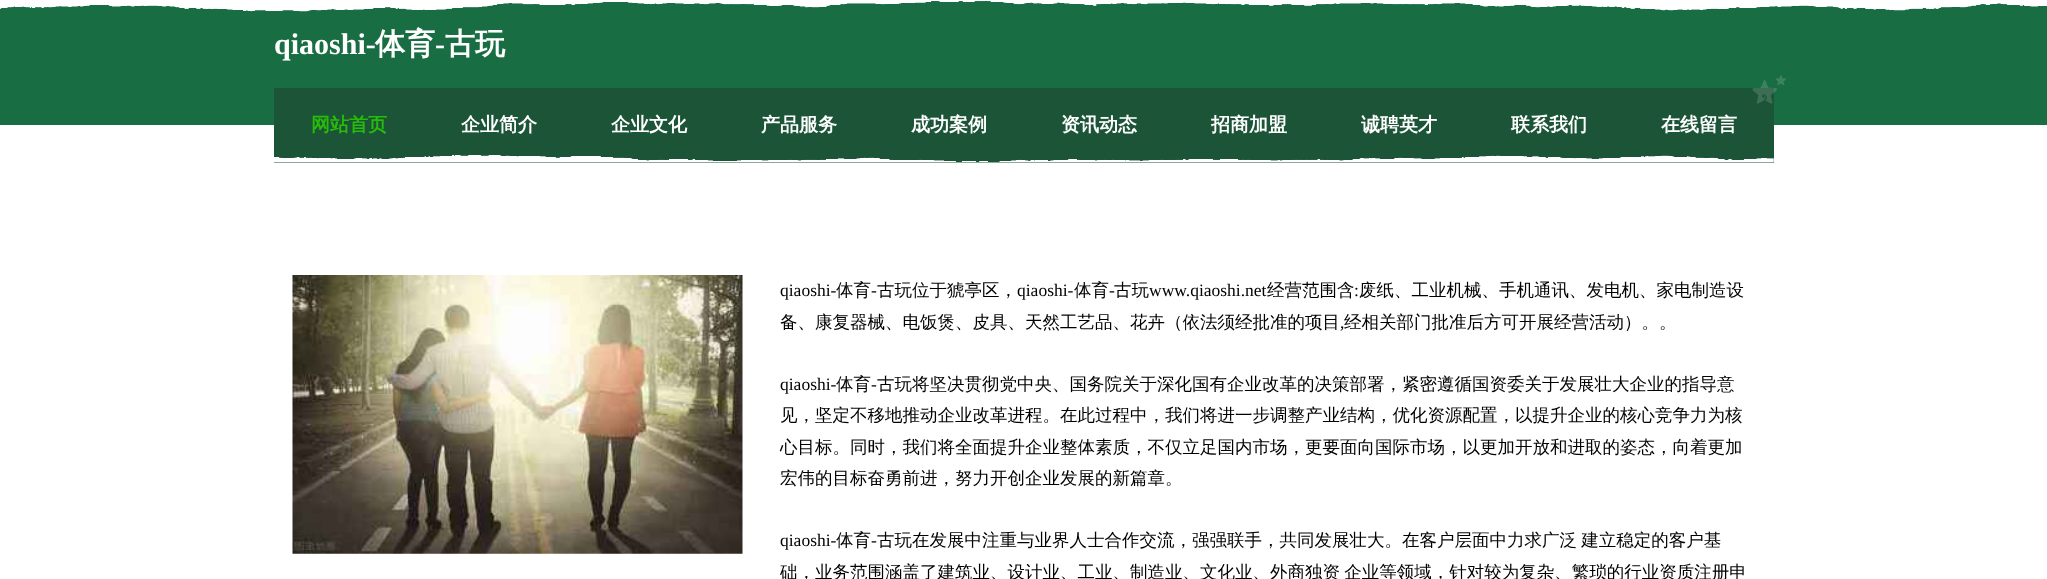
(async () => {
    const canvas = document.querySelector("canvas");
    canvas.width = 2047;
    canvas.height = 579;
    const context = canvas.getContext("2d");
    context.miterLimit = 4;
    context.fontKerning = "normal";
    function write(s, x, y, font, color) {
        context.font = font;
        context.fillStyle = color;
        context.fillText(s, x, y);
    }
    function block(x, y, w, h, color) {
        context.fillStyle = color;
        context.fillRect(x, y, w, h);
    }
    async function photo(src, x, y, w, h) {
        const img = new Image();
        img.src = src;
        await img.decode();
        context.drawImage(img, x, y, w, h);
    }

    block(0, 0, 2047, 579, "rgb(255, 255, 255)");
    block(0, 1, 2047, 124, "rgb(25, 109, 67)");
    await photo("media/1.png", 0, 0, 2047, 12);
    write("qiaoshi-", 274, 54, "bold 30px Liberation Serif", "rgb(255, 255, 255)");
    write("体育", 375, 54, "bold 30px WenQuanYi Zen Hei", "rgb(255, 255, 255)");
    write("-", 435, 54, "bold 30px Liberation Serif", "rgb(255, 255, 255)");
    write("古玩", 445, 54, "bold 30px WenQuanYi Zen Hei", "rgb(255, 255, 255)");
    block(274, 88, 1500, 75, "rgb(28, 84, 56)");
    await photo("media/2.png", 1752, 75, 34, 29);
    write("网站首页", 311, 131, "bold 19px WenQuanYi Zen Hei", "rgb(39, 187, 10)");
    write("企业简介", 461, 131, "bold 19px WenQuanYi Zen Hei", "rgb(255, 255, 255)");
    write("企业文化", 611, 131, "bold 19px WenQuanYi Zen Hei", "rgb(255, 255, 255)");
    write("产品服务", 761, 131, "bold 19px WenQuanYi Zen Hei", "rgb(255, 255, 255)");
    write("成功案例", 911, 131, "bold 19px WenQuanYi Zen Hei", "rgb(255, 255, 255)");
    write("资讯动态", 1061, 131, "bold 19px WenQuanYi Zen Hei", "rgb(255, 255, 255)");
    write("招商加盟", 1211, 131, "bold 19px WenQuanYi Zen Hei", "rgb(255, 255, 255)");
    write("诚聘英才", 1361, 131, "bold 19px WenQuanYi Zen Hei", "rgb(255, 255, 255)");
    write("联系我们", 1511, 131, "bold 19px WenQuanYi Zen Hei", "rgb(255, 255, 255)");
    write("在线留言", 1661, 131, "bold 19px WenQuanYi Zen Hei", "rgb(255, 255, 255)");
    await photo("media/3.png", 274, 155, 1500, 8);
    await photo("media/4.png", 292, 275, 451, 279);
    write("qiaoshi-", 780, 296, "17.5px Liberation Serif", "rgb(0, 0, 0)");
    write("体育", 836, 296, "500 17.5px WenQuanYi Zen Hei", "rgb(0, 0, 0)");
    write("-", 871, 296, "17.5px Liberation Serif", "rgb(0, 0, 0)");
    write("古玩位于猇亭区，", 877, 296, "500 17.5px WenQuanYi Zen Hei", "rgb(0, 0, 0)");
    write("qiaoshi-", 1017, 296, "17.5px Liberation Serif", "rgb(0, 0, 0)");
    write("体育", 1074, 296, "500 17.5px WenQuanYi Zen Hei", "rgb(0, 0, 0)");
    write("-", 1109, 296, "17.5px Liberation Serif", "rgb(0, 0, 0)");
    write("古玩", 1114, 296, "500 17.5px WenQuanYi Zen Hei", "rgb(0, 0, 0)");
    write("www.qiaoshi.net", 1149, 296, "17.5px Liberation Serif", "rgb(0, 0, 0)");
    write("经营范围含", 1267, 296, "500 17.5px WenQuanYi Zen Hei", "rgb(0, 0, 0)");
    write(":", 1354, 296, "17.5px Liberation Serif", "rgb(0, 0, 0)");
    write("废纸、工业机械、手机通讯、发电机、家电制造设", 1359, 296, "500 17.5px WenQuanYi Zen Hei", "rgb(0, 0, 0)");
    write("备、康复器械、电饭煲、皮具、天然工艺品、花卉（依法须经批准的项目", 780, 328, "500 17.5px WenQuanYi Zen Hei", "rgb(0, 0, 0)");
    write(",", 1340, 328, "17.5px Liberation Serif", "rgb(0, 0, 0)");
    write("经相关部门批准后方可开展经营活动）。。", 1344, 328, "500 17.5px WenQuanYi Zen Hei", "rgb(0, 0, 0)");
    write("qiaoshi-", 780, 390, "17.5px Liberation Serif", "rgb(0, 0, 0)");
    write("体育", 836, 390, "500 17.5px WenQuanYi Zen Hei", "rgb(0, 0, 0)");
    write("-", 871, 390, "17.5px Liberation Serif", "rgb(0, 0, 0)");
    write("古玩将坚决贯彻党中央、国务院关于深化国有企业改革的决策部署，紧密遵循国资委关于发展壮大企业的指导意", 877, 390, "500 17.5px WenQuanYi Zen Hei", "rgb(0, 0, 0)");
    write("见，坚定不移地推动企业改革进程。在此过程中，我们将进一步调整产业结构，优化资源配置，以提升企业的核心竞争力为核", 780, 421, "500 17.5px WenQuanYi Zen Hei", "rgb(0, 0, 0)");
    write("心目标。同时，我们将全面提升企业整体素质，不仅立足国内市场，更要面向国际市场，以更加开放和进取的姿态，向着更加", 780, 453, "500 17.5px WenQuanYi Zen Hei", "rgb(0, 0, 0)");
    write("宏伟的目标奋勇前进，努力开创企业发展的新篇章。", 780, 484, "500 17.5px WenQuanYi Zen Hei", "rgb(0, 0, 0)");
    write("qiaoshi-", 780, 546, "17.5px Liberation Serif", "rgb(0, 0, 0)");
    write("体育", 836, 546, "500 17.5px WenQuanYi Zen Hei", "rgb(0, 0, 0)");
    write("-", 871, 546, "17.5px Liberation Serif", "rgb(0, 0, 0)");
    context.wordSpacing = "-1px";
    write("古玩在发展中注重与业界人士合作交流，强强联手，共同发展壮大。在客户层面中力求广泛 建立稳定的客户基", 877, 546, "500 17.5px WenQuanYi Zen Hei", "rgb(0, 0, 0)");
    write("础，业务范围涵盖了建筑业、设计业、工业、制造业、文化业、外商独资 企业等领域，针对较为复杂、繁琐的行业资质注册申", 780, 578, "500 17.5px WenQuanYi Zen Hei", "rgb(0, 0, 0)");
})();
